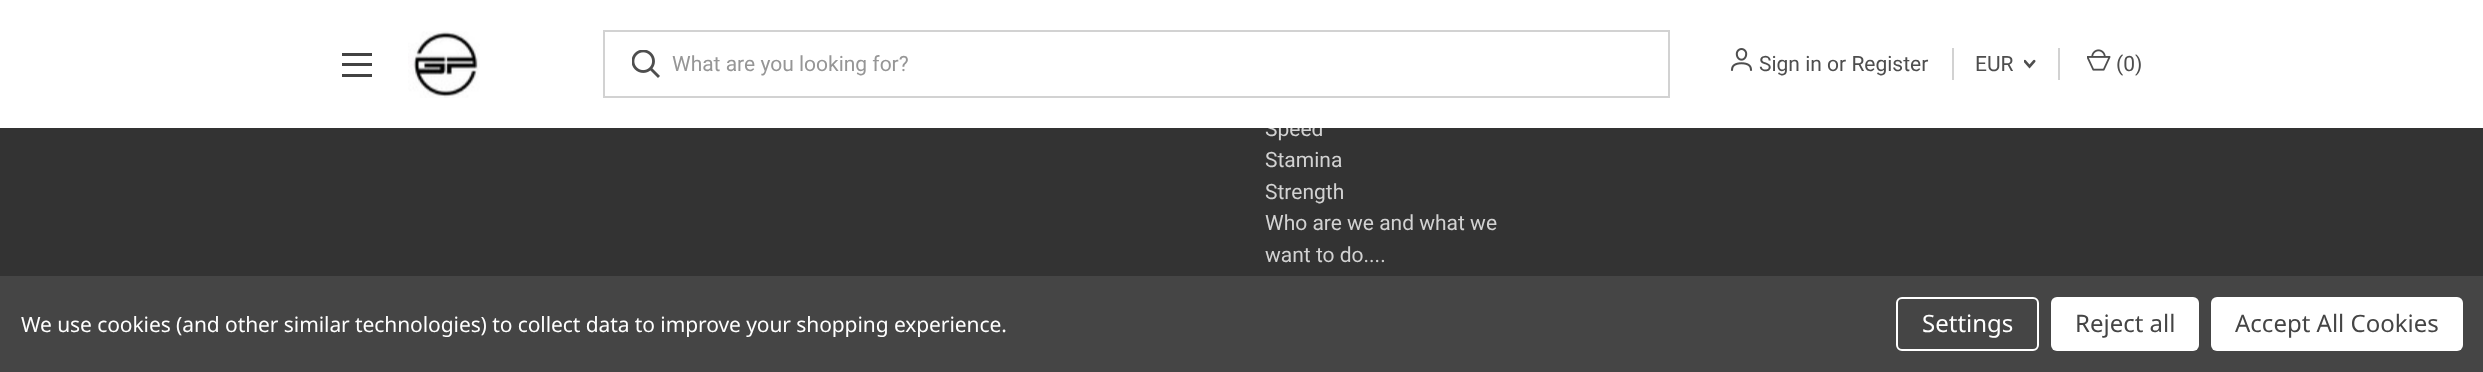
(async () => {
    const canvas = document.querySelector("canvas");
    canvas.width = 2483;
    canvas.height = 372;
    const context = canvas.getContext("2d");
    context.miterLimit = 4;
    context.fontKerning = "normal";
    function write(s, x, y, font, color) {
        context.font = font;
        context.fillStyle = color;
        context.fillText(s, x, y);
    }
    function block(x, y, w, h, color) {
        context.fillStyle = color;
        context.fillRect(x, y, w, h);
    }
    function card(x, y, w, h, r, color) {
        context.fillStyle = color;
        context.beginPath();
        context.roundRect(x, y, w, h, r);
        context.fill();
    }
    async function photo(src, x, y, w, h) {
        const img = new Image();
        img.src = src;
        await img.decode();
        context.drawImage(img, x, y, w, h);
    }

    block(0, 0, 2483, 372, "rgb(51, 51, 51)");
    write("Speed", 1265, 136, "21px Roboto", "rgb(210, 210, 210)");
    block(0, 0, 2483, 128, "rgb(255, 255, 255)");
    block(342, 63, 30, 3, "rgb(66, 66, 66)");
    block(342, 53, 30, 3, "rgb(66, 66, 66)");
    block(342, 74, 30, 3, "rgb(66, 66, 66)");
    await photo("media/1.png", 408, 31, 72, 67);
    context.strokeStyle = "rgb(210, 210, 210)";
    context.lineWidth = 2;
    context.strokeRect(604, 31, 1065, 66);
    await photo("media/2.png", 632, 50, 28, 28);
    write("What are you looking for?", 672, 71, "21px Roboto", "rgb(150, 150, 150)");
    await photo("media/3.png", 1730, 48, 23, 23);
    write("Sign in or Register", 1759, 71, "21px Roboto", "rgb(78, 78, 78)");
    block(1952, 48, 2, 32, "rgb(210, 210, 210)");
    write("EUR", 1975, 71, "21px Roboto", "rgb(78, 78, 78)");
    await photo("media/4.png", 2024, 59, 12, 10);
    block(2058, 48, 2, 32, "rgb(210, 210, 210)");
    await photo("media/5.png", 2087, 49, 24, 22);
    write("(0)", 2116, 71, "21px Roboto", "rgb(78, 78, 78)");
    write("Stamina", 1265, 167, "21px Roboto", "rgb(210, 210, 210)");
    write("Strength", 1265, 199, "21px Roboto", "rgb(210, 210, 210)");
    write("Who are we and what we", 1265, 230, "21px Roboto", "rgb(210, 210, 210)");
    write("want to do....", 1265, 262, "21px Roboto", "rgb(210, 210, 210)");
    block(0, 276, 2483, 96, "rgb(69, 69, 69)");
    context.letterSpacing = "-0.08px";
    write("We use cookies (and other similar technologies) to collect data to improve your shopping experience.", 21, 332, "21px Noto Sans", "rgb(255, 255, 255)");
    context.beginPath();
    context.roundRect(1897, 298, 141, 52, 5);
    context.strokeStyle = "rgb(255, 255, 255)";
    context.stroke();
    context.letterSpacing = "0px";
    write("Settings", 1922, 332, "24px Noto Sans", "rgb(255, 255, 255)");
    card(2051, 297, 148, 54, 6, "rgb(255, 255, 255)");
    write("Reject all", 2075, 332, "24px Noto Sans", "rgb(69, 69, 69)");
    card(2211, 297, 252, 54, 6, "rgb(255, 255, 255)");
    write("Accept All Cookies", 2235, 332, "24px Noto Sans", "rgb(69, 69, 69)");
})();
